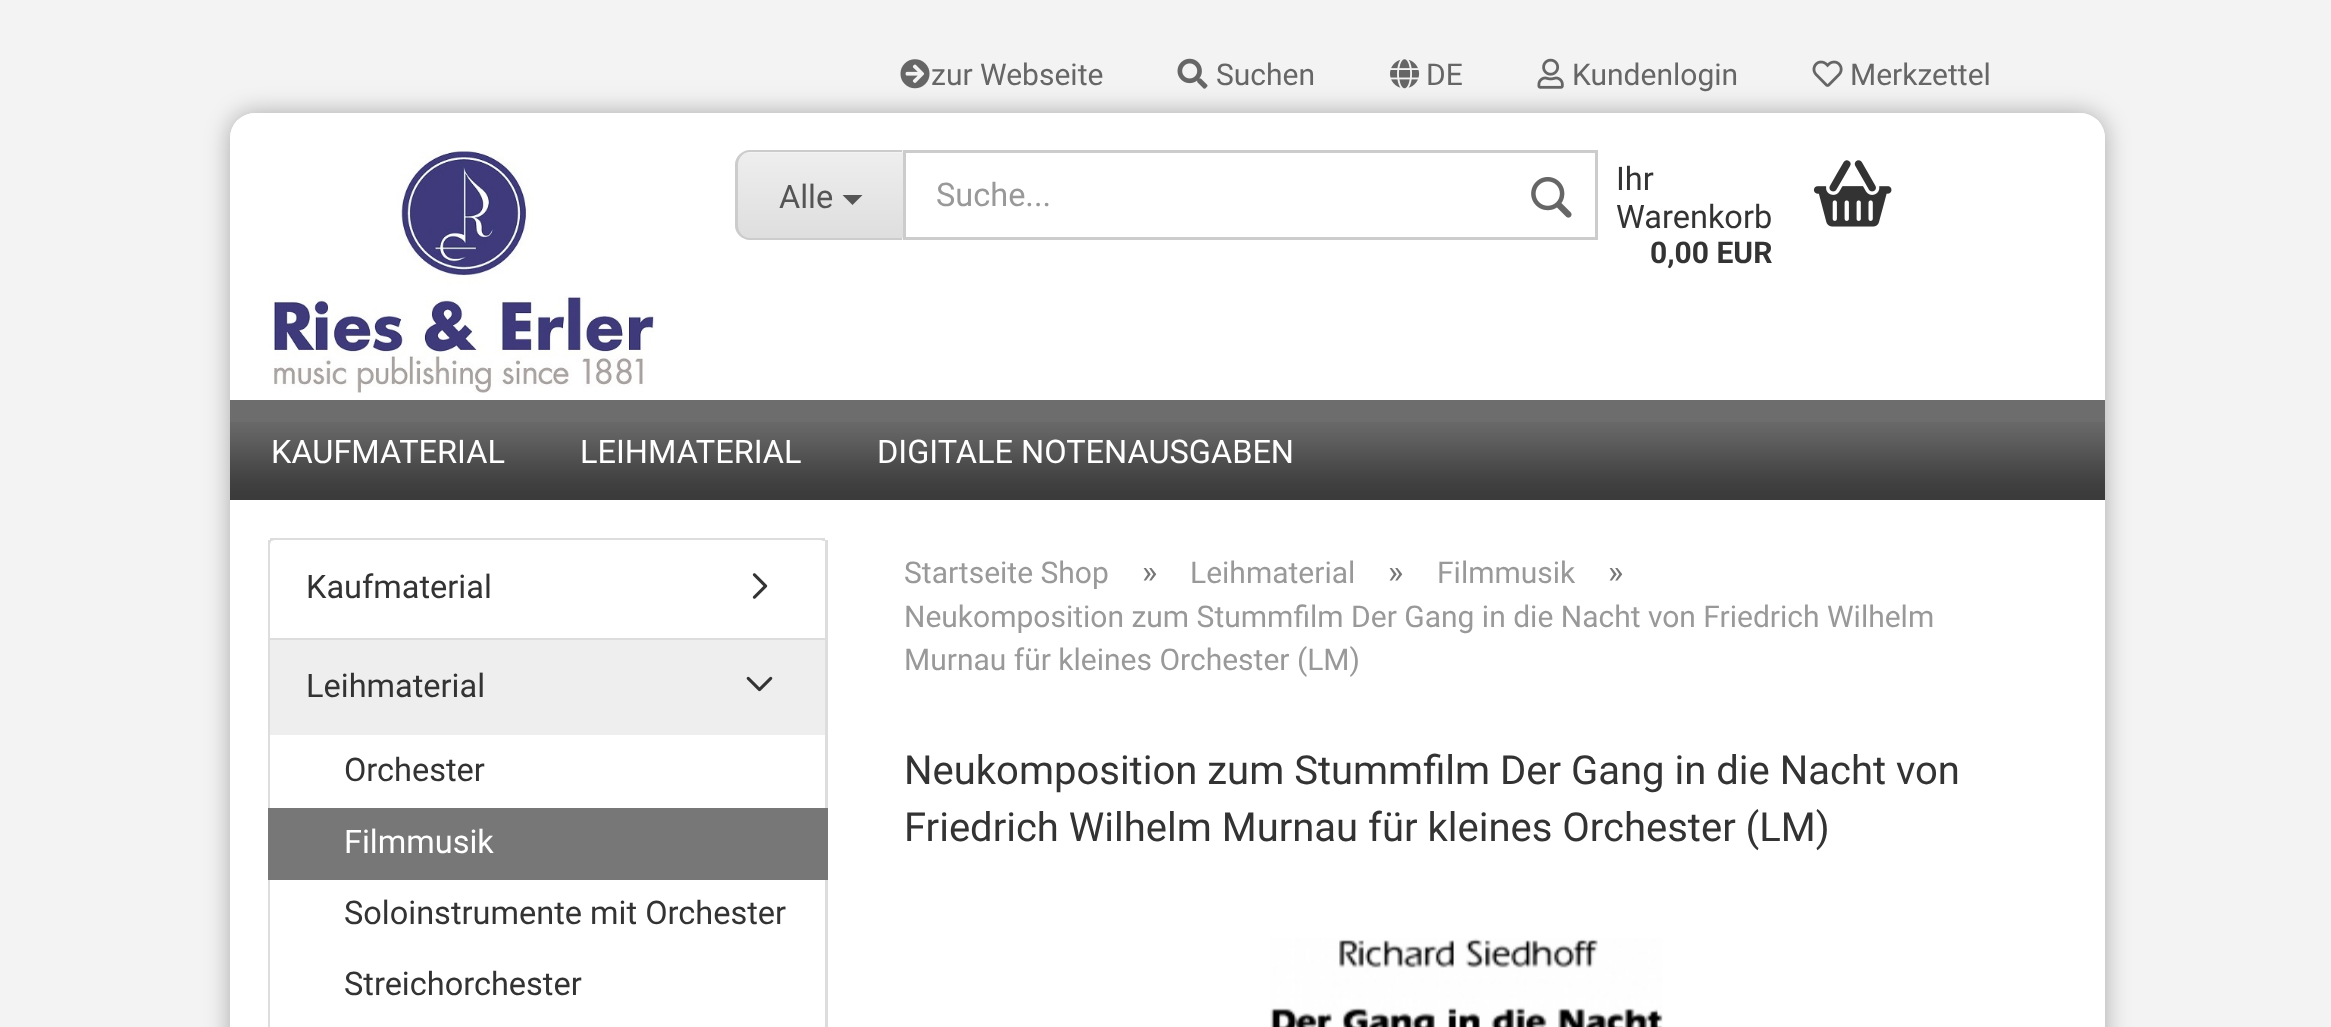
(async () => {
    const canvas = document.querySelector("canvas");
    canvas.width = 2331;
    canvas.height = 1027;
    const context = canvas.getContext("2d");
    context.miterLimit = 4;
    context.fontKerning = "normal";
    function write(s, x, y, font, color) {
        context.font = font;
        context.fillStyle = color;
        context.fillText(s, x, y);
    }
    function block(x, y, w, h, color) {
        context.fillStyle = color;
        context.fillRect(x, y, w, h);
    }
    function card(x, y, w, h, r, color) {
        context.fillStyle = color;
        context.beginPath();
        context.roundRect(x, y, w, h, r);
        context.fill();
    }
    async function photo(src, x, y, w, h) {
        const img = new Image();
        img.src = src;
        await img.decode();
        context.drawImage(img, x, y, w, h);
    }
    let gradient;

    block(0, 0, 2331, 1027, "rgb(243, 243, 243)");
    context.fillStyle = "rgba(0, 0, 0, 0.3)";
    context.filter = "blur(12.5px)";
    context.beginPath();
    context.roundRect(230, 113, 1875, 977, 25);
    context.fill();
    context.filter = "none";
    card(230, 113, 1875, 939, 25, "rgb(255, 255, 255)");
    context.beginPath();
    context.roundRect(230, 113, 1875, 387, [25, 25, 5, 5]);
    context.fill();
    await photo("media/1.png", 900, 59, 30, 30);
    write("zur Webseite", 931, 85, "30px Roboto", "rgb(102, 102, 102)");
    await photo("media/2.png", 1177, 58, 31, 31);
    write("Suchen", 1216, 85, "30px Roboto", "rgb(102, 102, 102)");
    await photo("media/3.png", 1390, 59, 30, 30);
    write("DE", 1426, 85, "30px Roboto", "rgb(102, 102, 102)");
    await photo("media/4.png", 1537, 58, 27, 31);
    write("Kundenlogin", 1572, 85, "30px Roboto", "rgb(102, 102, 102)");
    await photo("media/5.png", 1812, 60, 31, 27);
    write("Merkzettel", 1850, 85, "30px Roboto", "rgb(102, 102, 102)");
    await photo("media/6.png", 268, 150, 387, 243);
    context.fillStyle = "rgb(243, 243, 243)";
    context.beginPath();
    context.roundRect(735, 150, 168, 90, [15, 0, 0, 15]);
    context.fill();
    context.save();
    context.beginPath();
    context.roundRect(735, 150, 168, 90, [15, 0, 0, 15]);
    context.clip();
    gradient = context.createLinearGradient(820, 153, 820, 238);
    gradient.addColorStop(0, "rgb(238, 238, 238)");
    gradient.addColorStop(1, "rgb(222, 222, 222)");
    context.fillStyle = gradient;
    context.fillRect(735, 153, 168, 85);
    context.restore();
    context.fillStyle = "rgb(204, 204, 204)";
    context.beginPath();
    context.moveTo(750, 150);
    context.lineTo(902, 150);
    context.lineTo(902, 240);
    context.lineTo(750, 240);
    context.bezierCurveTo(742, 240, 735, 233, 735, 225);
    context.lineTo(735, 165);
    context.bezierCurveTo(735, 157, 742, 150, 750, 150);
    context.closePath();
    context.moveTo(750, 152);
    context.lineTo(902, 152);
    context.lineTo(902, 238);
    context.lineTo(750, 238);
    context.bezierCurveTo(743, 238, 738, 232, 738, 225);
    context.lineTo(738, 165);
    context.bezierCurveTo(738, 158, 743, 152, 750, 152);
    context.closePath();
    context.fill("evenodd");
    write("Alle", 779, 208, "32.5px Roboto", "rgb(85, 85, 85)");
    context.beginPath();
    context.moveTo(842.5, 195);
    context.lineTo(862.5, 195);
    context.lineTo(852.5, 205);
    context.closePath();
    context.fill();
    context.strokeStyle = "rgb(204, 204, 204)";
    context.lineWidth = 3;
    context.strokeRect(904.5, 151.5, 692, 87);
    write("Suche...", 936, 206, "32.5px Roboto", "rgb(153, 153, 153)");
    await photo("media/7.png", 1531, 177, 41, 41);
    write("Ihr", 1616, 190, "32.5px Roboto", "rgb(51, 51, 51)");
    write("Warenkorb", 1616, 228, "32.5px Roboto", "rgb(51, 51, 51)");
    write("0,00 EUR", 1650, 263, "bold 30px Roboto", "rgb(51, 51, 51)");
    await photo("media/8.png", 1813, 160, 79, 67);
    block(230, 400, 1875, 100, "rgb(109, 109, 109)");
    await photo("media/9.png", 230, 422, 1875, 78);
    write("KAUFMATERIAL", 271, 463, "32.5px Roboto", "rgb(255, 255, 255)");
    write("LEIHMATERIAL", 580, 463, "32.5px Roboto", "rgb(255, 255, 255)");
    write("DIGITALE NOTENAUSGABEN", 877, 463, "32.5px Roboto", "rgb(255, 255, 255)");
    block(270, 538, 555, 3, "rgb(221, 221, 221)");
    block(825, 540, 3, 487, "rgb(221, 221, 221)");
    block(268, 540, 3, 487, "rgb(221, 221, 221)");
    block(270, 638, 555, 2, "rgb(221, 221, 221)");
    context.fillStyle = "rgb(255, 255, 255)";
    context.beginPath();
    context.roundRect(270, 540, 555, 98, [5, 5, 0, 0]);
    context.fill();
    write("Kaufmaterial", 306, 598, "32.5px Roboto", "rgb(51, 51, 51)");
    await photo("media/10.png", 752, 573, 16, 26);
    block(270, 640, 555, 95, "rgb(238, 238, 238)");
    write("Leihmaterial", 306, 697, "32.5px Roboto", "rgb(51, 51, 51)");
    await photo("media/11.png", 746, 676, 27, 16);
    block(270, 735, 1, 292, "rgb(255, 255, 255)");
    write("Orchester", 344, 781, "32.5px Roboto", "rgb(51, 51, 51)");
    block(268, 808, 560, 72, "rgb(119, 119, 119)");
    write("Filmmusik", 344, 853, "32.5px Roboto", "rgb(255, 255, 255)");
    write("Soloinstrumente mit Orchester", 344, 924, "32.5px Roboto", "rgb(51, 51, 51)");
    write("Streichorchester", 344, 995, "32.5px Roboto", "rgb(51, 51, 51)");
    write("Startseite Shop", 904, 583, "30px Roboto", "rgb(153, 153, 153)");
    write("»", 1142, 583, "32.5px Roboto", "rgb(119, 119, 119)");
    write("Leihmaterial", 1190, 583, "30px Roboto", "rgb(153, 153, 153)");
    write("»", 1388, 583, "32.5px Roboto", "rgb(119, 119, 119)");
    write("Filmmusik", 1437, 583, "30px Roboto", "rgb(153, 153, 153)");
    write("»", 1608, 583, "32.5px Roboto", "rgb(119, 119, 119)");
    write("Neukomposition zum Stummfilm Der Gang in die Nacht von Friedrich Wilhelm", 904, 627, "30px Roboto", "rgb(153, 153, 153)");
    write("Murnau für kleines Orchester (LM)", 904, 670, "30px Roboto", "rgb(153, 153, 153)");
    write("Neukomposition zum Stummfilm Der Gang in die Nacht von", 904, 784, "40px Roboto", "rgb(51, 51, 51)");
    write("Friedrich Wilhelm Murnau für kleines Orchester (LM)", 904, 841, "40px Roboto", "rgb(51, 51, 51)");
    await photo("media/12.png", 1270, 938, 393, 89);
})();
